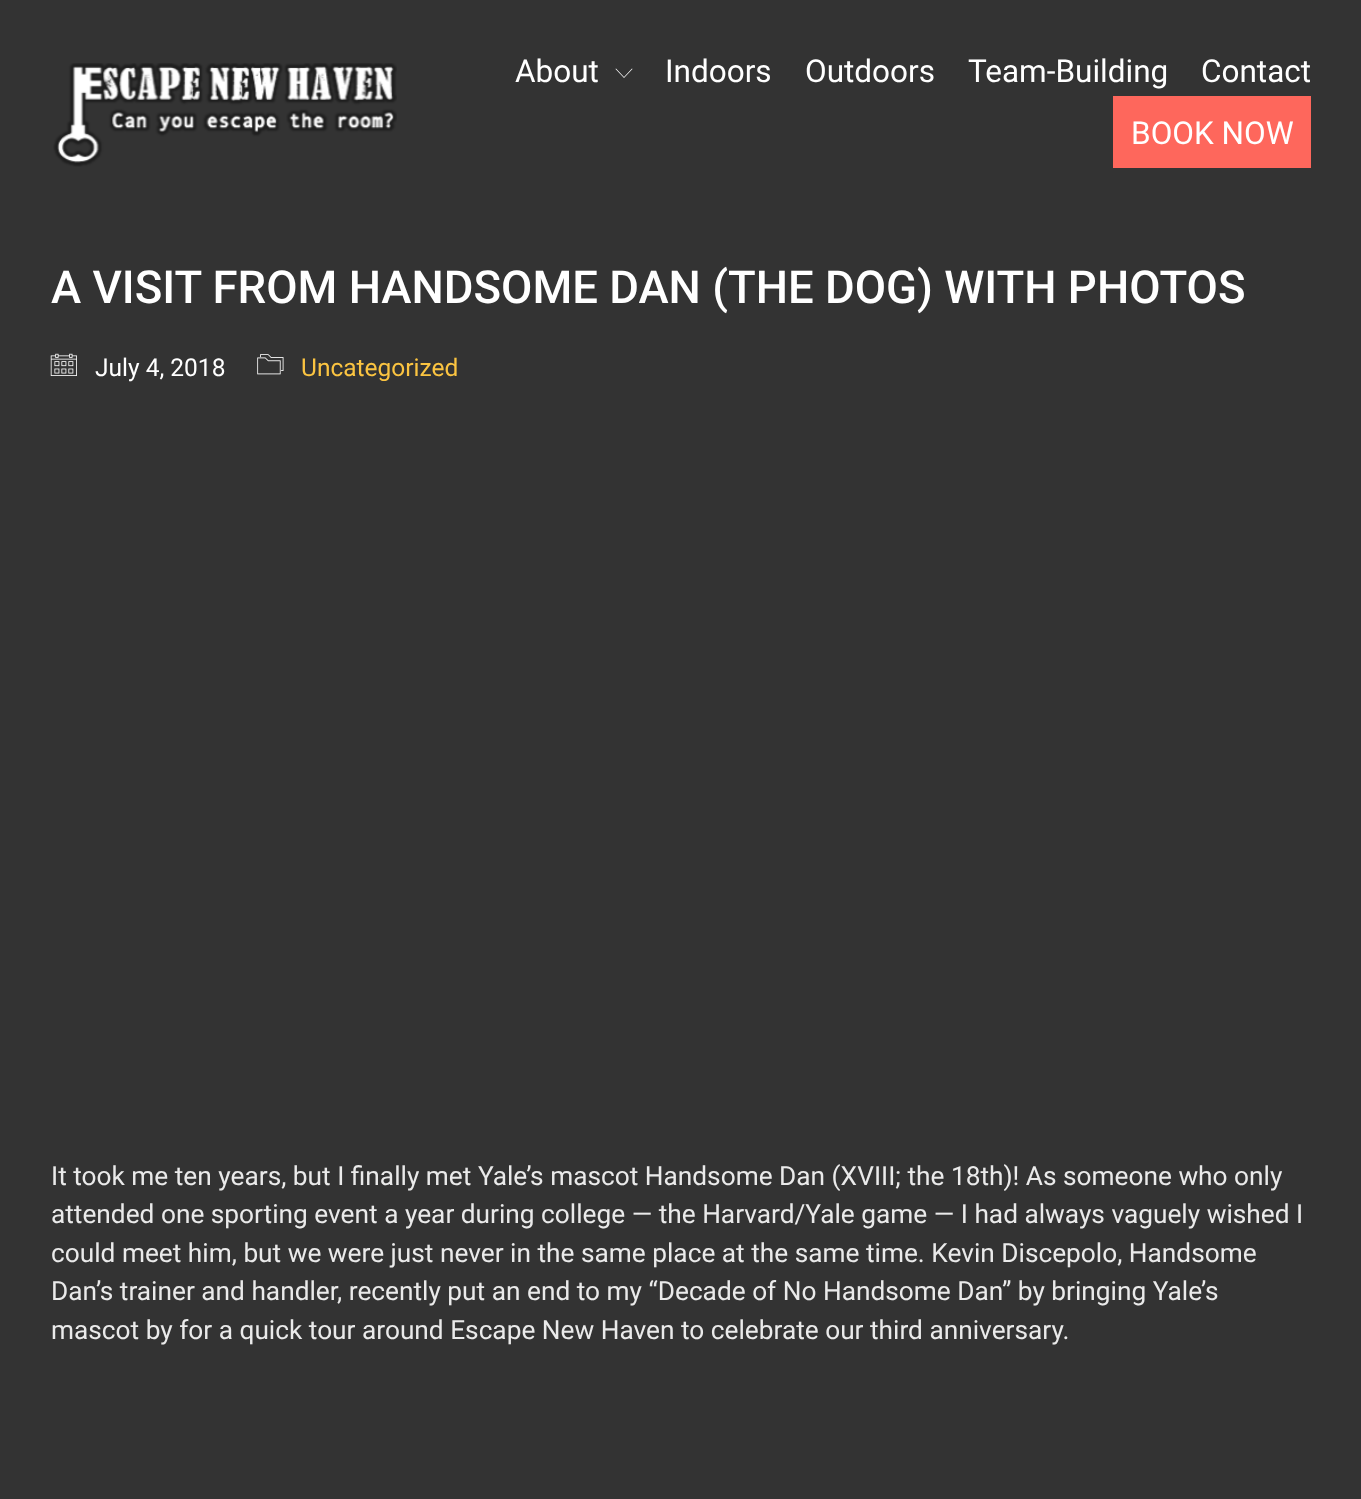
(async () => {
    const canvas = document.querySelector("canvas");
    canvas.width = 1361;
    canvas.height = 1499;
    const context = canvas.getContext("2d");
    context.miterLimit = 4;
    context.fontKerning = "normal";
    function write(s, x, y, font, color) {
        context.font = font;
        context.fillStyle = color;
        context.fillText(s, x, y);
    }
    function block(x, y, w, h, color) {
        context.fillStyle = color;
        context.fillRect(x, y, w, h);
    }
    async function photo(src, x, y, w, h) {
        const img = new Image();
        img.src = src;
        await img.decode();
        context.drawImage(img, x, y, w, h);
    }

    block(0, 0, 1361, 1499, "rgb(51, 51, 51)");
    await photo("media/1.png", 53, 63, 344, 104);
    write("About", 515, 82, "31.5px Roboto", "rgb(255, 255, 255)");
    context.beginPath();
    context.moveTo(624, 78);
    context.lineTo(615.5, 69);
    context.lineTo(616, 68.5);
    context.lineTo(624, 77);
    context.lineTo(632, 68.5);
    context.lineTo(632.5, 69);
    context.closePath();
    context.fill();
    write("Indoors", 665, 82, "31.5px Roboto", "rgb(255, 255, 255)");
    write("Outdoors", 805, 82, "31.5px Roboto", "rgb(255, 255, 255)");
    write("Team-Building", 968, 82, "31.5px Roboto", "rgb(255, 255, 255)");
    write("Contact", 1201, 82, "31.5px Roboto", "rgb(255, 255, 255)");
    block(1113, 96, 198, 72, "rgb(254, 103, 92)");
    write("BOOK NOW", 1131, 144, "31.5px Roboto", "rgb(255, 255, 255)");
    write("A VISIT FROM HANDSOME DAN (THE DOG) WITH PHOTOS", 51, 303, "500 45.5px Roboto", "rgb(255, 255, 255)");
    await photo("media/2.png", 50, 353, 27, 23);
    write("July 4, 2018", 95, 376, "24.5px Roboto", "rgb(255, 255, 255)");
    await photo("media/3.png", 257, 354, 27, 21);
    write("Uncategorized", 301, 376, "24.5px Roboto", "rgb(251, 196, 65)");
    write("It took me ten years, but I finally met Yale’s mascot Handsome Dan (XVIII; the 18th)! As someone who only", 51, 1185, "26.25px Roboto", "rgb(234, 234, 234)");
    write("attended one sporting event a year during college — the Harvard/Yale game — I had always vaguely wished I", 51, 1223, "26.25px Roboto", "rgb(234, 234, 234)");
    write("could meet him, but we were just never in the same place at the same time. Kevin Discepolo, Handsome", 51, 1262, "26.25px Roboto", "rgb(234, 234, 234)");
    write("Dan’s trainer and handler, recently put an end to my “Decade of No Handsome Dan” by bringing Yale’s", 51, 1300, "26.25px Roboto", "rgb(234, 234, 234)");
    write("mascot by for a quick tour around Escape New Haven to celebrate our third anniversary.", 51, 1339, "26.25px Roboto", "rgb(234, 234, 234)");
})();
